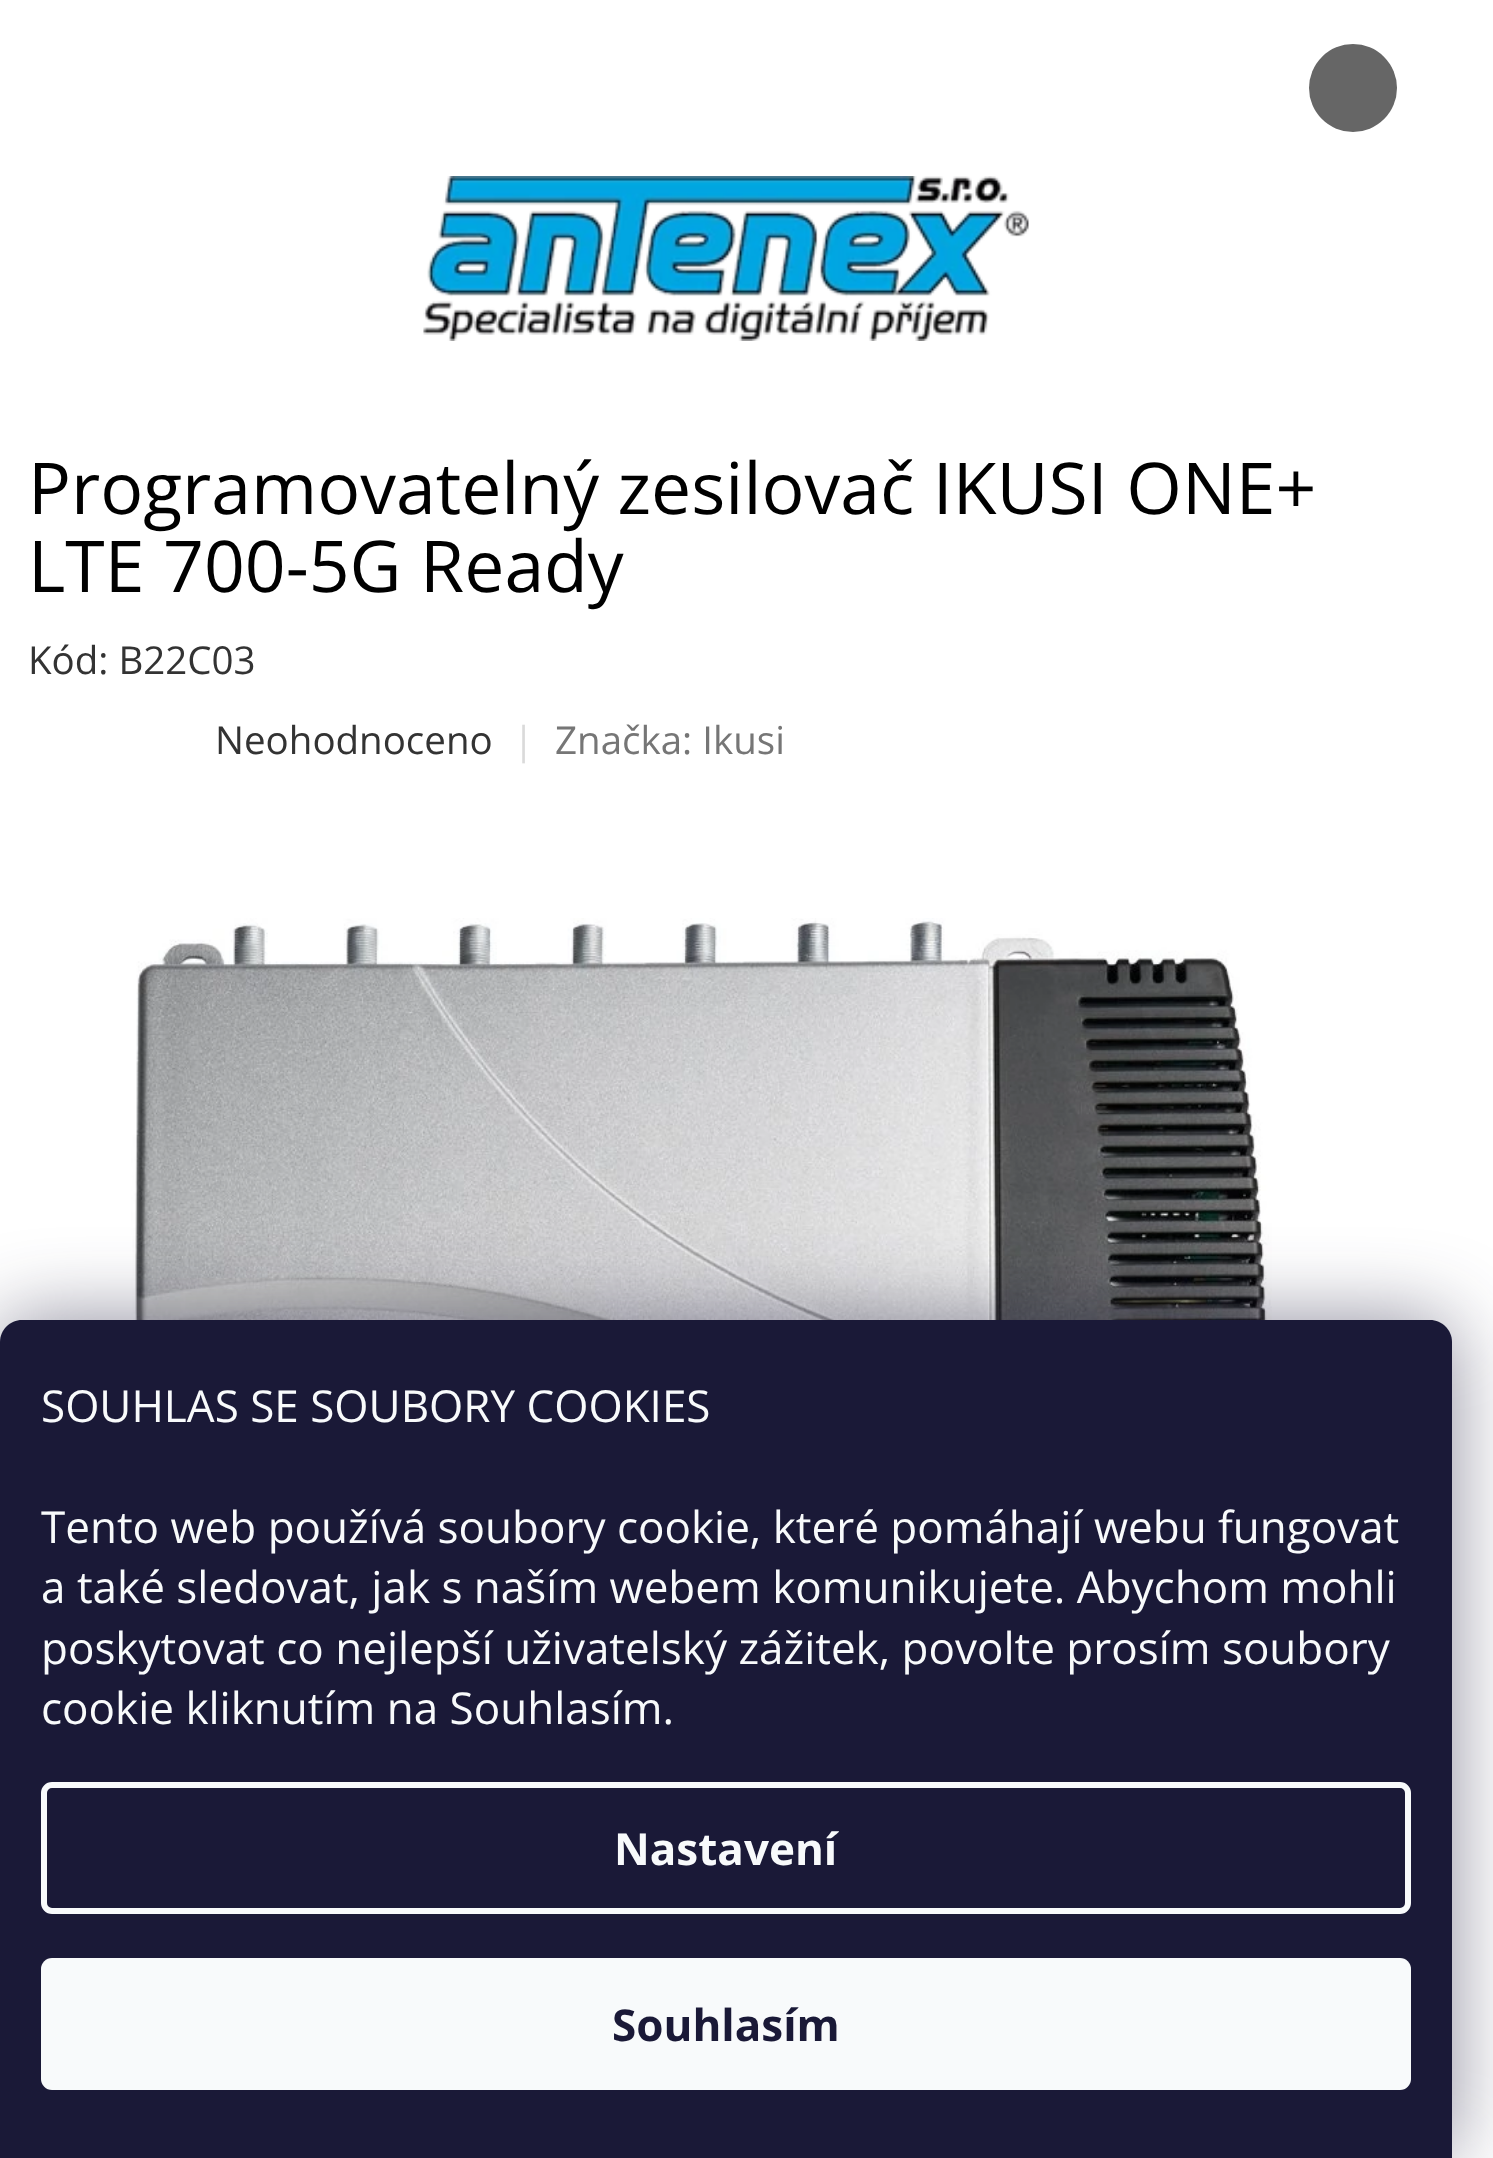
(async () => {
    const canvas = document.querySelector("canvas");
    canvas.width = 1493;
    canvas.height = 2158;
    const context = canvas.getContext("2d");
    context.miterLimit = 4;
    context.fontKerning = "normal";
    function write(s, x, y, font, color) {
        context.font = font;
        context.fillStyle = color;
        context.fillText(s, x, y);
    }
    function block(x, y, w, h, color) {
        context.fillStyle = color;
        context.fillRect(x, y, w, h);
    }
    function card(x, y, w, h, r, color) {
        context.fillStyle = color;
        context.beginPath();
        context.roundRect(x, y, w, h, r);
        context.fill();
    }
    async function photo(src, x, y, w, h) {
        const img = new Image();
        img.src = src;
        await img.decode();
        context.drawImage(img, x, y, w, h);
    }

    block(0, 0, 1493, 2158, "rgb(255, 255, 255)");
    context.fillStyle = "rgb(102, 102, 102)";
    context.beginPath();
    context.arc(1353, 88, 44, 0, Math.PI * 2);
    context.fill();
    await photo("media/1.png", 423, 176, 606, 165);
    write("Programovatelný zesilovač IKUSI ONE+", 28, 514, "71.5px Open Sans", "rgb(0, 0, 0)");
    write("LTE 700-5G Ready", 28, 592, "71.5px Open Sans", "rgb(0, 0, 0)");
    write("Kód: B22C03", 28, 674, "38.5px Open Sans", "rgb(51, 51, 51)");
    write("Neohodnoceno", 215, 754, "38.5px Open Sans", "rgb(51, 51, 51)");
    write("|", 513, 754, "38.5px Open Sans", "rgb(218, 218, 218)");
    write("Značka: Ikusi", 555, 754, "38.5px Open Sans", "rgb(118, 118, 118)");
    await photo("media/2.png", 131, 918, 1141, 402);
    context.fillStyle = "rgba(27, 25, 57, 0.5)";
    context.filter = "blur(41px)";
    context.beginPath();
    context.roundRect(0, 1320, 1452, 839, 22);
    context.fill();
    context.filter = "none";
    context.fillStyle = "rgb(26, 25, 55)";
    context.beginPath();
    context.moveTo(22, 1320);
    context.lineTo(1430, 1320);
    context.bezierCurveTo(1442, 1320, 1452, 1330, 1452, 1342);
    context.lineTo(1452, 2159);
    context.lineTo(0, 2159);
    context.lineTo(0, 1342);
    context.bezierCurveTo(0, 1330, 10, 1320, 22, 1320);
    context.closePath();
    context.fill();
    write("SOUHLAS SE SOUBORY COOKIES", 41, 1422, "44px Open Sans", "rgb(248, 250, 251)");
    write("Tento web používá soubory cookie, které pomáhají webu fungovat", 41, 1543, "44px Open Sans", "rgb(248, 250, 251)");
    write("a také sledovat, jak s naším webem komunikujete. Abychom mohli", 41, 1603, "44px Open Sans", "rgb(248, 250, 251)");
    write("poskytovat co nejlepší uživatelský zážitek, povolte prosím soubory", 41, 1664, "44px Open Sans", "rgb(248, 250, 251)");
    write("cookie kliknutím na Souhlasím.", 41, 1724, "44px Open Sans", "rgb(248, 250, 251)");
    context.beginPath();
    context.roundRect(44, 1785, 1364, 126, 8);
    context.strokeStyle = "rgb(248, 250, 251)";
    context.lineWidth = 6;
    context.stroke();
    write("Nastavení", 614, 1865, "bold 44px Open Sans", "rgb(248, 250, 251)");
    card(41, 1958, 1370, 132, 11, "rgb(248, 250, 251)");
    write("Souhlasím", 612, 2041, "bold 44px Open Sans", "rgb(26, 25, 55)");
})();
